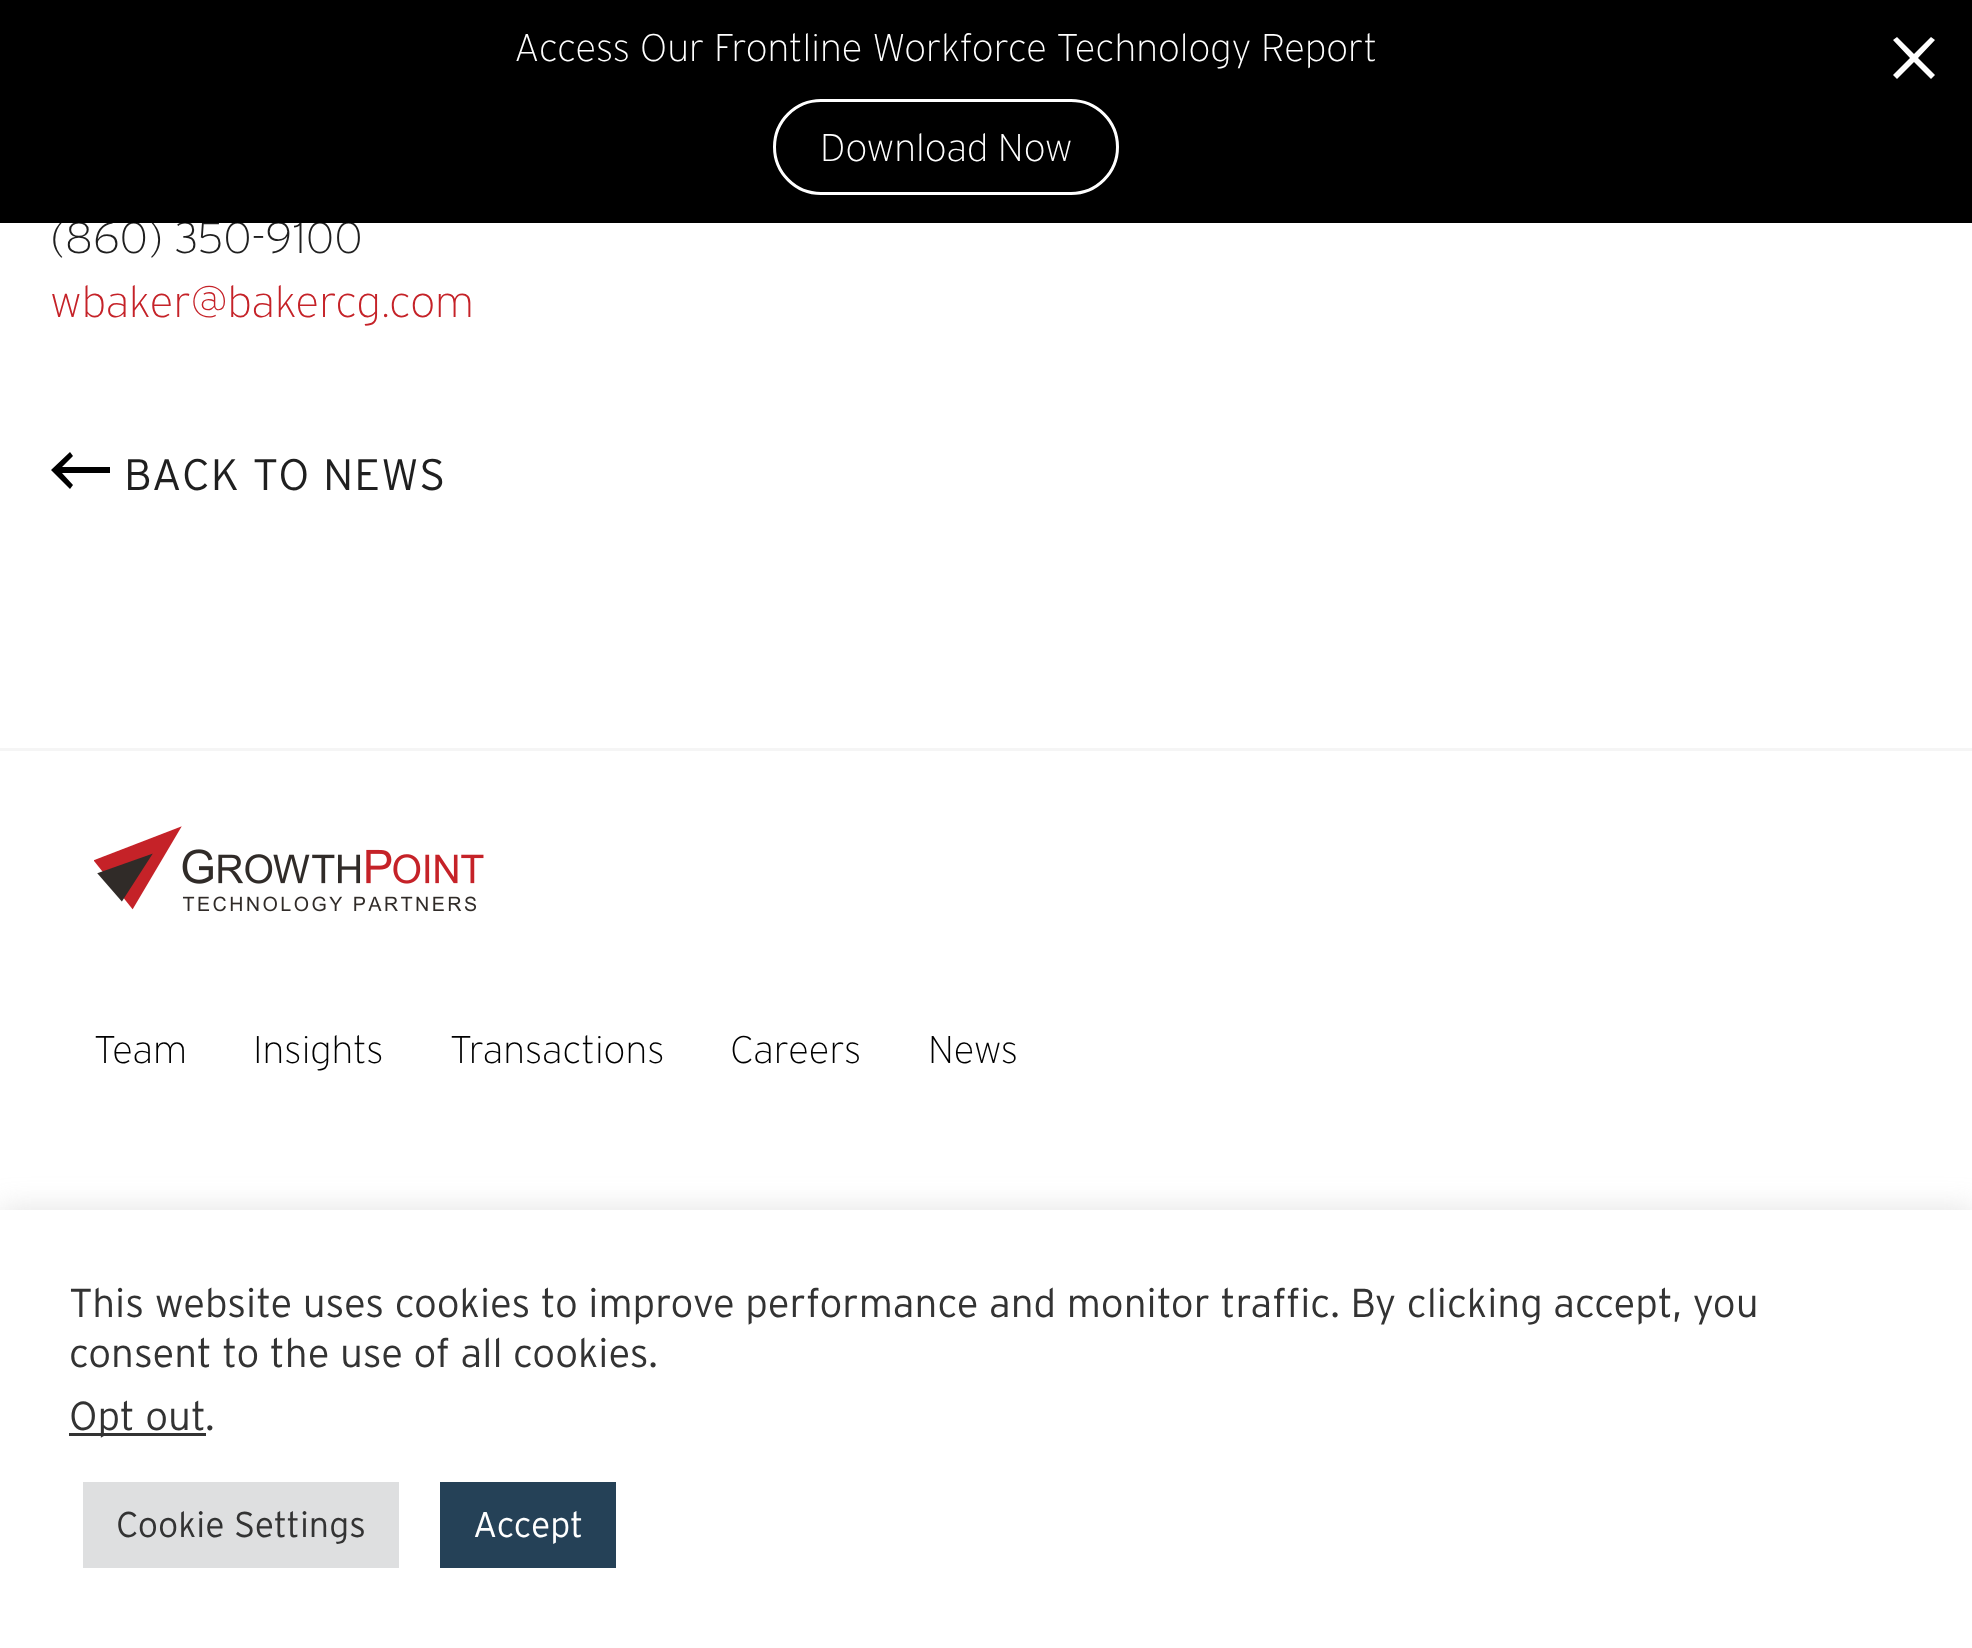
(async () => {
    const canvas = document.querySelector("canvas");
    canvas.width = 1972;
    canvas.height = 1648;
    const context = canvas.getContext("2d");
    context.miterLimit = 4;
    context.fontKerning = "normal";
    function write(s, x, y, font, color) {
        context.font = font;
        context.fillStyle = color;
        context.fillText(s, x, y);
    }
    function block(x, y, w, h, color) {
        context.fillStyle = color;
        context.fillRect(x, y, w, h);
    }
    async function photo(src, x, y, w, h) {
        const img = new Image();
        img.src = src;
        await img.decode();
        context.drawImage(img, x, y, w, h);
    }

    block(0, 0, 1972, 1648, "rgb(255, 255, 255)");
    write("(860) 350-9100", 50, 253, "200 44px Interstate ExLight", "rgb(31, 31, 31)");
    block(0, 0, 1972, 223, "rgb(0, 0, 0)");
    write("Access Our Frontline Workforce Technology Report", 514, 61, "200 38.5px Interstate ExLight", "rgb(255, 255, 255)");
    context.beginPath();
    context.moveTo(1897, 37);
    context.lineTo(1893, 40);
    context.lineTo(1910, 58);
    context.lineTo(1893, 75);
    context.lineTo(1897, 79);
    context.lineTo(1914, 62);
    context.lineTo(1931, 79);
    context.lineTo(1935, 75);
    context.lineTo(1918, 58);
    context.lineTo(1935, 40);
    context.lineTo(1931, 37);
    context.lineTo(1914, 54);
    context.closePath();
    context.fill();
    context.beginPath();
    context.roundRect(774.5, 100.5, 343, 93, 46.5);
    context.strokeStyle = "rgb(255, 255, 255)";
    context.lineWidth = 3;
    context.stroke();
    write("Download Now", 820, 161, "200 38.5px Interstate ExLight", "rgb(255, 255, 255)");
    write("wbaker@bakercg.com", 50, 317, "200 44px Interstate ExLight", "rgb(197, 34, 40)");
    context.fillStyle = "rgb(0, 0, 0)";
    context.beginPath();
    context.moveTo(73, 485);
    context.lineTo(70, 489);
    context.lineTo(51, 470);
    context.lineTo(70, 452);
    context.lineTo(73, 456);
    context.lineTo(62, 467);
    context.lineTo(110, 467);
    context.lineTo(110, 473);
    context.lineTo(62, 473);
    context.closePath();
    context.fill();
    context.letterSpacing = "1.1px";
    write("BACK TO NEWS", 124, 490, "300 44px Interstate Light", "rgb(31, 31, 31)");
    block(0, 748, 1972, 3, "rgb(245, 245, 245)");
    await photo("media/1.png", 94, 826, 390, 86);
    context.letterSpacing = "0px";
    write("Team", 94, 1063, "200 38.5px Interstate ExLight", "rgb(0, 0, 0)");
    write("Insights", 253, 1063, "200 38.5px Interstate ExLight", "rgb(0, 0, 0)");
    write("Transactions", 450, 1063, "200 38.5px Interstate ExLight", "rgb(0, 0, 0)");
    write("Careers", 730, 1063, "200 38.5px Interstate ExLight", "rgb(0, 0, 0)");
    write("News", 928, 1063, "200 38.5px Interstate ExLight", "rgb(0, 0, 0)");
    context.fillStyle = "rgba(172, 171, 171, 0.3)";
    context.filter = "blur(14px)";
    context.beginPath();
    context.rect(0, 1207, 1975, 440);
    context.fill();
    context.filter = "none";
    block(0, 1210, 1972, 438, "rgb(255, 255, 255)");
    write("This website uses cookies to improve performance and monitor traffic. By clicking accept, you", 69, 1317, "300 40.35px Interstate Light", "rgb(51, 51, 51)");
    write("consent to the use of all cookies.", 69, 1367, "300 40.35px Interstate Light", "rgb(51, 51, 51)");
    block(69, 1433, 137, 3, "rgb(51, 51, 51)");
    write("Opt out", 69, 1430, "300 40.35px Interstate Light", "rgb(51, 51, 51)");
    write(".", 205, 1430, "300 40.35px Interstate Light", "rgb(51, 51, 51)");
    block(83, 1482, 316, 86, "rgb(222, 223, 224)");
    write("Cookie Settings", 116, 1537, "300 35.75px Interstate Light", "rgb(51, 51, 51)");
    block(440, 1482, 176, 86, "rgb(37, 65, 87)");
    write("Accept", 473, 1537, "300 35.75px Interstate Light", "rgb(255, 255, 255)");
})();
